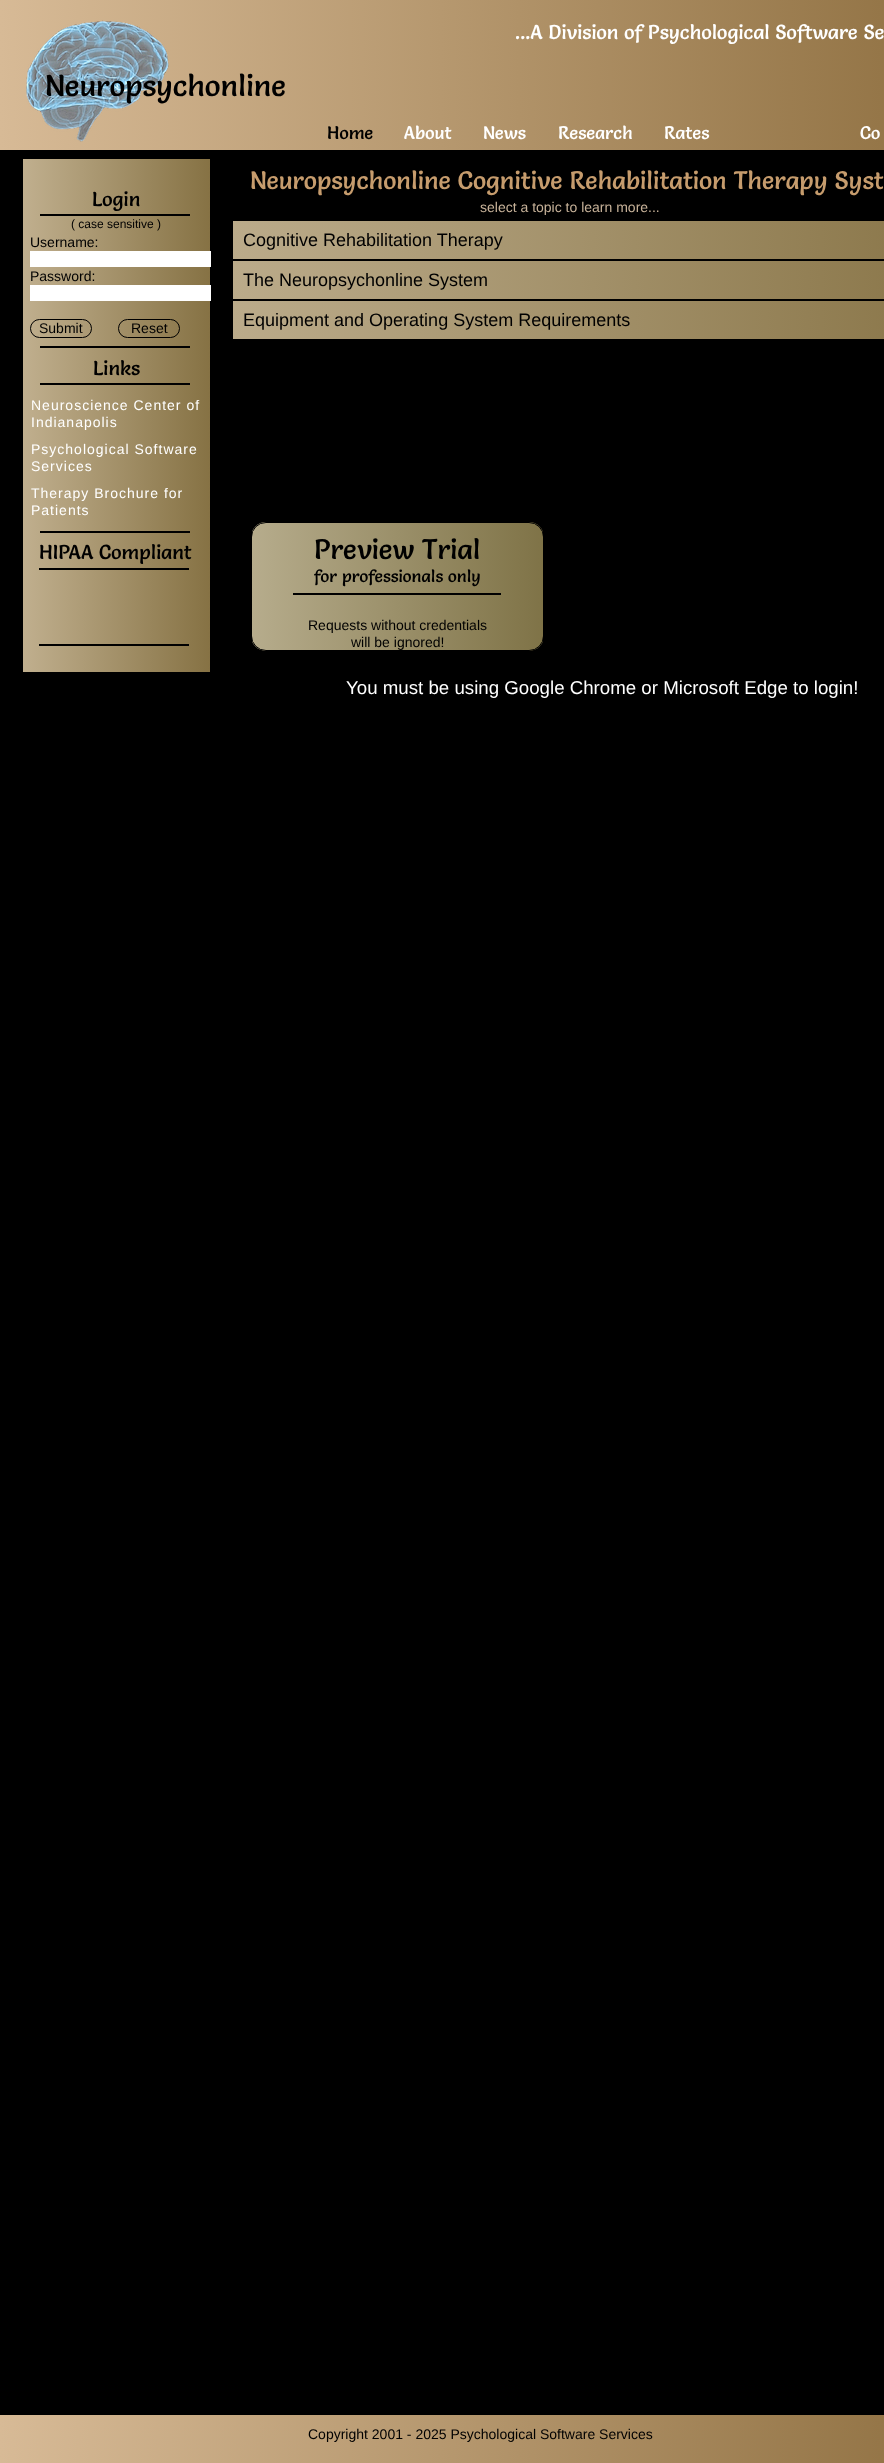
(async () => {
    const canvas = document.querySelector("canvas");
    canvas.width = 884;
    canvas.height = 2463;
    const context = canvas.getContext("2d");
    context.miterLimit = 4;
    context.fontKerning = "normal";
    function write(s, x, y, font, color) {
        context.font = font;
        context.fillStyle = color;
        context.fillText(s, x, y);
    }
    function block(x, y, w, h, color) {
        context.fillStyle = color;
        context.fillRect(x, y, w, h);
    }
    async function photo(src, x, y, w, h) {
        const img = new Image();
        img.src = src;
        await img.decode();
        context.drawImage(img, x, y, w, h);
    }
    let gradient;

    block(0, 0, 884, 2463, "rgb(0, 0, 0)");
    gradient = context.createLinearGradient(0, 75, 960, 75);
    gradient.addColorStop(0, "rgb(215, 186, 150)");
    gradient.addColorStop(1, "rgb(143, 112, 65)");
    context.fillStyle = gradient;
    context.fillRect(0, 0, 884, 150);
    await photo("media/1.png", 26, 20, 143, 122);
    write("...A Division of Psychological Software Se", 515, 39, "20px Salsa", "rgb(255, 255, 255)");
    write("Neuropsychonline", 45, 96, "30px Salsa", "rgb(0, 0, 0)");
    write("Home", 327, 139, "18px Salsa", "rgb(0, 0, 0)");
    write("About", 404, 139, "18px Salsa", "rgb(255, 255, 255)");
    write("News", 483, 139, "18px Salsa", "rgb(255, 255, 255)");
    write("Research", 558, 139, "18px Salsa", "rgb(255, 255, 255)");
    write("Rates", 664, 139, "18px Salsa", "rgb(255, 255, 255)");
    write("Co", 860, 139, "18px Salsa", "rgb(255, 255, 255)");
    gradient = context.createLinearGradient(23, 416, 210, 416);
    gradient.addColorStop(0, "rgb(192, 175, 142)");
    gradient.addColorStop(1, "rgb(134, 114, 68)");
    context.fillStyle = gradient;
    context.fillRect(23, 159, 187, 513);
    write("Login", 92, 206, "20px Salsa", "rgb(0, 0, 0)");
    block(40, 214, 150, 2, "rgb(0, 0, 0)");
    write("( case sensitive )", 71, 228, "12px Liberation Sans", "rgb(0, 0, 0)");
    write("Username:", 30, 247, "14px Liberation Sans", "rgb(0, 0, 0)");
    block(30, 251, 181, 16, "rgb(255, 255, 255)");
    write("Password:", 30, 281, "14px Liberation Sans", "rgb(0, 0, 0)");
    block(30, 285, 181, 16, "rgb(255, 255, 255)");
    context.beginPath();
    context.roundRect(30.5, 319.5, 61, 18, 9);
    context.strokeStyle = "rgb(0, 0, 0)";
    context.stroke();
    write("Submit", 39, 333, "14px Liberation Sans", "rgb(0, 0, 0)");
    context.beginPath();
    context.roundRect(118.5, 319.5, 61, 18, 9);
    context.stroke();
    write("Reset", 131, 333, "14px Liberation Sans", "rgb(0, 0, 0)");
    block(40, 346, 150, 2, "rgb(0, 0, 0)");
    write("Links", 93, 375, "20px Salsa", "rgb(0, 0, 0)");
    block(40, 383, 150, 2, "rgb(0, 0, 0)");
    context.letterSpacing = "1px";
    write("Neuroscience Center of", 31, 410, "14px Liberation Sans", "rgb(255, 255, 255)");
    write("Indianapolis", 31, 427, "14px Liberation Sans", "rgb(255, 255, 255)");
    write("Psychological Software", 31, 454, "14px Liberation Sans", "rgb(255, 255, 255)");
    write("Services", 31, 471, "14px Liberation Sans", "rgb(255, 255, 255)");
    write("Therapy Brochure for", 31, 498, "14px Liberation Sans", "rgb(255, 255, 255)");
    write("Patients", 31, 515, "14px Liberation Sans", "rgb(255, 255, 255)");
    block(40, 531, 150, 2, "rgb(0, 0, 0)");
    context.letterSpacing = "0px";
    write("HIPAA Compliant", 39, 559, "20px Salsa", "rgb(0, 0, 0)");
    block(39, 568, 150, 2, "rgb(0, 0, 0)");
    block(39, 644, 150, 2, "rgb(0, 0, 0)");
    write("Neuropsychonline Cognitive Rehabilitation Therapy Syst", 250, 189, "25px Salsa", "rgb(198, 156, 109)");
    write("select a topic to learn more...", 480, 212, "14px Liberation Sans", "rgb(199, 178, 153)");
    gradient = context.createLinearGradient(233, 240, 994, 240);
    gradient.addColorStop(0, "rgb(187, 171, 138)");
    gradient.addColorStop(1, "rgb(134, 114, 68)");
    context.fillStyle = gradient;
    context.fillRect(233, 221, 651, 38);
    write("Cognitive Rehabilitation Therapy", 243, 246, "18px Liberation Sans", "rgb(0, 0, 0)");
    gradient = context.createLinearGradient(233, 280, 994, 280);
    gradient.addColorStop(0, "rgb(187, 171, 138)");
    gradient.addColorStop(1, "rgb(134, 114, 68)");
    context.fillStyle = gradient;
    context.fillRect(233, 261, 651, 38);
    write("The Neuropsychonline System", 243, 286, "18px Liberation Sans", "rgb(0, 0, 0)");
    gradient = context.createLinearGradient(233, 320, 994, 320);
    gradient.addColorStop(0, "rgb(187, 171, 138)");
    gradient.addColorStop(1, "rgb(134, 114, 68)");
    context.fillStyle = gradient;
    context.fillRect(233, 301, 651, 38);
    write("Equipment and Operating System Requirements", 243, 326, "18px Liberation Sans", "rgb(0, 0, 0)");
    context.save();
    context.beginPath();
    context.roundRect(251, 522, 293, 129, 15);
    context.clip();
    gradient = context.createLinearGradient(252, 587, 543, 587);
    gradient.addColorStop(0, "rgb(182, 172, 140)");
    gradient.addColorStop(1, "rgb(127, 115, 71)");
    context.fillStyle = gradient;
    context.fillRect(252, 522, 291, 129);
    context.restore();
    context.beginPath();
    context.roundRect(251.5, 522.5, 292, 128, 14.5);
    context.stroke();
    write("Preview Trial", 314, 559, "28px Salsa", "rgb(0, 0, 0)");
    write("for professionals only", 314, 582, "17px Salsa", "rgb(0, 0, 0)");
    block(293, 593, 208, 2, "rgb(0, 0, 0)");
    write("Requests without credentials", 308, 630, "14px Liberation Sans", "rgb(0, 0, 0)");
    write("will be ignored!", 351, 647, "14px Liberation Sans", "rgb(0, 0, 0)");
    write("You must be using Google Chrome or Microsoft Edge to login!", 346, 694, "18.7px Liberation Sans", "rgb(255, 255, 255)");
    gradient = context.createLinearGradient(0, 2439, 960, 2439);
    gradient.addColorStop(0, "rgb(215, 186, 150)");
    gradient.addColorStop(1, "rgb(143, 112, 65)");
    context.fillStyle = gradient;
    context.fillRect(0, 2415, 884, 48);
    write("Copyright 2001 - 2025 Psychological Software Services", 308, 2439, "14px Liberation Sans", "rgb(0, 0, 0)");
})();
